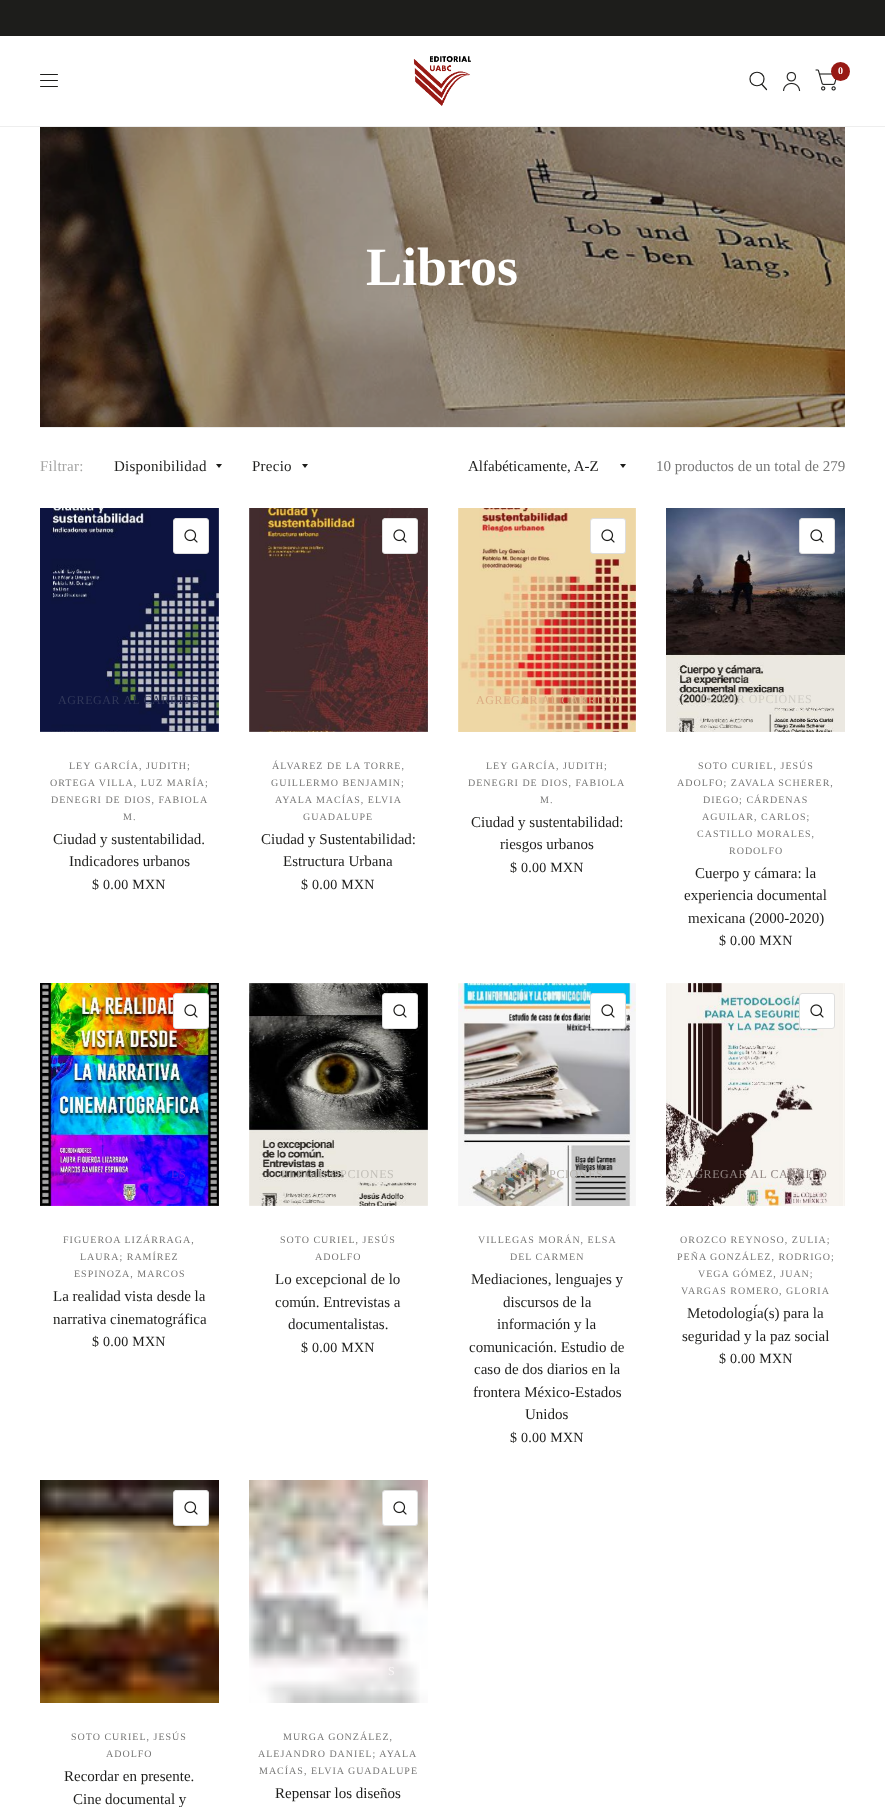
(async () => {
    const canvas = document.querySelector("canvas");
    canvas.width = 885;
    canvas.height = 1807;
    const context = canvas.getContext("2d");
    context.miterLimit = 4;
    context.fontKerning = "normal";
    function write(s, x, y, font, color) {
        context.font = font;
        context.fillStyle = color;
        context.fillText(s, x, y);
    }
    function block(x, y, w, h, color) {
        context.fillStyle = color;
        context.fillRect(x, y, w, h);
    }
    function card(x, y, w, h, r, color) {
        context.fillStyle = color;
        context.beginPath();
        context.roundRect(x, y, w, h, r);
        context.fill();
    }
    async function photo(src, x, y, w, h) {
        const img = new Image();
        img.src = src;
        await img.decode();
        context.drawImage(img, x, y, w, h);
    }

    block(0, 0, 885, 1807, "rgb(255, 255, 255)");
    block(0, 0, 885, 36, "rgb(29, 29, 27)");
    block(0, 126, 885, 1, "rgb(238, 238, 238)");
    await photo("media/1.png", 413, 56, 58, 50);
    context.beginPath();
    context.moveTo(762, 84.5);
    context.lineTo(766.5, 89.5);
    context.moveTo(764, 79);
    context.bezierCurveTo(764, 88, 750, 88, 750, 79);
    context.bezierCurveTo(750, 70, 764, 70, 764, 79);
    context.closePath();
    context.strokeStyle = "rgb(29, 29, 27)";
    context.lineWidth = 1.2;
    context.lineCap = "round";
    context.lineJoin = "round";
    context.stroke();
    await photo("media/2.png", 783, 71, 18, 21);
    await photo("media/3.png", 815, 69, 22, 22);
    context.fillStyle = "rgb(151, 25, 20)";
    context.beginPath();
    context.arc(840.5, 71.5, 9.5, 0, Math.PI * 2);
    context.fill();
    write("0", 838, 74, "bold 10px Liberation Serif", "rgb(255, 255, 255)");
    card(40, 74, 18, 1, 0.5, "rgb(29, 29, 27)");
    card(40, 80, 18, 1, 0.5, "rgb(29, 29, 27)");
    card(40, 86, 18, 1, 0.5, "rgb(29, 29, 27)");
    await photo("media/4.png", 40, 127, 805, 300);
    write("Libros", 366, 285, "bold 54px Liberation Serif", "rgb(255, 255, 255)");
    block(40, 427, 805, 1, "rgb(238, 238, 238)");
    context.letterSpacing = "0.25px";
    write("Filtrar:", 40, 471, "15px Liberation Serif", "rgb(165, 165, 164)");
    write("Disponibilidad", 114, 471, "15px Liberation Serif", "rgb(29, 29, 27)");
    context.beginPath();
    context.moveTo(216, 464);
    context.lineTo(222, 464);
    context.lineTo(219, 468);
    context.closePath();
    context.fill();
    write("Precio", 252, 471, "15px Liberation Serif", "rgb(29, 29, 27)");
    context.beginPath();
    context.moveTo(302, 464);
    context.lineTo(308, 464);
    context.lineTo(305, 468);
    context.closePath();
    context.fill();
    context.letterSpacing = "0px";
    write("Alfabéticamente, A-Z", 468, 471, "15px Liberation Serif", "rgb(29, 29, 27)");
    context.beginPath();
    context.moveTo(620, 464);
    context.lineTo(626, 464);
    context.lineTo(623, 468);
    context.closePath();
    context.fill();
    write("10 productos de un total de 279", 656, 471, "15px Liberation Serif", "rgb(119, 119, 118)");
    await photo("media/5.png", 40, 508, 179, 224);
    context.fillStyle = "rgb(255, 255, 255)";
    context.beginPath();
    context.roundRect(173.5, 518.5, 35, 35, 2.5);
    context.fill();
    context.strokeStyle = "rgb(222, 222, 222)";
    context.lineWidth = 1;
    context.lineJoin = "miter";
    context.stroke();
    await photo("media/6.png", 184, 529, 14, 14);
    context.letterSpacing = "0.6px";
    write("AGREGAR AL CARRITO", 58, 704, "12px Liberation Serif", "rgb(49, 56, 90)");
    context.letterSpacing = "1px";
    write("LEY GARCÍA, JUDITH;", 69, 769, "10px Liberation Serif", "rgb(119, 119, 118)");
    write("ORTEGA VILLA, LUZ MARÍA;", 50, 786, "10px Liberation Serif", "rgb(119, 119, 118)");
    write("DENEGRI DE DIOS, FABIOLA", 51, 803, "10px Liberation Serif", "rgb(119, 119, 118)");
    write("M.", 123, 820, "10px Liberation Serif", "rgb(119, 119, 118)");
    context.letterSpacing = "0px";
    write("Ciudad y sustentabilidad.", 53, 844, "15px Liberation Serif", "rgb(29, 29, 27)");
    write("Indicadores urbanos", 69, 866, "15px Liberation Serif", "rgb(29, 29, 27)");
    context.letterSpacing = "0.25px";
    write("$ 0.00 MXN", 92, 889, "14px Liberation Serif", "rgb(29, 29, 27)");
    await photo("media/7.png", 249, 508, 179, 224);
    context.fillStyle = "rgb(255, 255, 255)";
    context.beginPath();
    context.roundRect(382.5, 518.5, 35, 35, 2.5);
    context.fill();
    context.stroke();
    await photo("media/6.png", 393, 529, 14, 14);
    context.letterSpacing = "1px";
    write("ÁLVAREZ DE LA TORRE,", 272, 769, "10px Liberation Serif", "rgb(119, 119, 118)");
    write("GUILLERMO BENJAMIN;", 271, 786, "10px Liberation Serif", "rgb(119, 119, 118)");
    write("AYALA MACÍAS, ELVIA", 275, 803, "10px Liberation Serif", "rgb(119, 119, 118)");
    write("GUADALUPE", 303, 820, "10px Liberation Serif", "rgb(119, 119, 118)");
    context.letterSpacing = "0px";
    write("Ciudad y Sustentabilidad:", 261, 844, "15px Liberation Serif", "rgb(29, 29, 27)");
    write("Estructura Urbana", 283, 866, "15px Liberation Serif", "rgb(29, 29, 27)");
    context.letterSpacing = "0.25px";
    write("$ 0.00 MXN", 301, 889, "14px Liberation Serif", "rgb(29, 29, 27)");
    await photo("media/8.png", 458, 508, 178, 224);
    context.fillStyle = "rgb(255, 255, 255)";
    context.beginPath();
    context.roundRect(590.5, 518.5, 35, 35, 2.5);
    context.fill();
    context.stroke();
    await photo("media/6.png", 601, 529, 14, 14);
    context.letterSpacing = "0.6px";
    write("AGREGAR AL CARRITO", 476, 704, "12px Liberation Serif", "rgb(220, 173, 132)");
    context.letterSpacing = "1px";
    write("LEY GARCÍA, JUDITH;", 486, 769, "10px Liberation Serif", "rgb(119, 119, 118)");
    write("DENEGRI DE DIOS, FABIOLA", 468, 786, "10px Liberation Serif", "rgb(119, 119, 118)");
    write("M.", 540, 803, "10px Liberation Serif", "rgb(119, 119, 118)");
    context.letterSpacing = "0px";
    write("Ciudad y sustentabilidad:", 471, 827, "15px Liberation Serif", "rgb(29, 29, 27)");
    write("riesgos urbanos", 500, 849, "15px Liberation Serif", "rgb(29, 29, 27)");
    context.letterSpacing = "0.25px";
    write("$ 0.00 MXN", 510, 872, "14px Liberation Serif", "rgb(29, 29, 27)");
    await photo("media/9.png", 666, 508, 179, 224);
    context.fillStyle = "rgb(255, 255, 255)";
    context.beginPath();
    context.roundRect(799.5, 518.5, 35, 35, 2.5);
    context.fill();
    context.stroke();
    await photo("media/6.png", 810, 529, 14, 14);
    context.letterSpacing = "0.6px";
    write("ELEGIR OPCIONES", 699, 703, "12px Liberation Serif", "rgb(207, 204, 197)");
    context.letterSpacing = "1px";
    write("SOTO CURIEL, JESÚS", 698, 769, "10px Liberation Serif", "rgb(119, 119, 118)");
    write("ADOLFO; ZAVALA SCHERER,", 677, 786, "10px Liberation Serif", "rgb(119, 119, 118)");
    write("DIEGO; CÁRDENAS", 703, 803, "10px Liberation Serif", "rgb(119, 119, 118)");
    write("AGUILAR, CARLOS;", 702, 820, "10px Liberation Serif", "rgb(119, 119, 118)");
    write("CASTILLO MORALES,", 697, 837, "10px Liberation Serif", "rgb(119, 119, 118)");
    write("RODOLFO", 729, 854, "10px Liberation Serif", "rgb(119, 119, 118)");
    context.letterSpacing = "0px";
    write("Cuerpo y cámara: la", 695, 878, "15px Liberation Serif", "rgb(29, 29, 27)");
    write("experiencia documental", 684, 900, "15px Liberation Serif", "rgb(29, 29, 27)");
    write("mexicana (2000-2020)", 688, 923, "15px Liberation Serif", "rgb(29, 29, 27)");
    context.letterSpacing = "0.25px";
    write("$ 0.00 MXN", 719, 945, "14px Liberation Serif", "rgb(29, 29, 27)");
    await photo("media/10.png", 40, 983, 179, 223);
    context.fillStyle = "rgb(255, 255, 255)";
    context.beginPath();
    context.roundRect(173.5, 993.5, 35, 35, 2.5);
    context.fill();
    context.stroke();
    await photo("media/6.png", 184, 1004, 14, 14);
    context.letterSpacing = "0.6px";
    write("ES", 171, 1178, "12px Liberation Serif", "rgb(106, 20, 235)");
    context.letterSpacing = "1px";
    write("FIGUEROA LIZÁRRAGA,", 63, 1243, "10px Liberation Serif", "rgb(119, 119, 118)");
    write("LAURA; RAMÍREZ", 80, 1260, "10px Liberation Serif", "rgb(119, 119, 118)");
    write("ESPINOZA, MARCOS", 74, 1277, "10px Liberation Serif", "rgb(119, 119, 118)");
    context.letterSpacing = "0px";
    write("La realidad vista desde la", 53, 1301, "15px Liberation Serif", "rgb(29, 29, 27)");
    write("narrativa cinematográfica", 53, 1324, "15px Liberation Serif", "rgb(29, 29, 27)");
    context.letterSpacing = "0.25px";
    write("$ 0.00 MXN", 92, 1346, "14px Liberation Serif", "rgb(29, 29, 27)");
    await photo("media/11.png", 249, 983, 179, 223);
    context.fillStyle = "rgb(255, 255, 255)";
    context.beginPath();
    context.roundRect(382.5, 993.5, 35, 35, 2.5);
    context.fill();
    context.stroke();
    await photo("media/6.png", 393, 1004, 14, 14);
    context.letterSpacing = "0.6px";
    write("ELEGIR OPCIONES", 281, 1178, "12px Liberation Serif", "rgb(193, 190, 183)");
    context.letterSpacing = "1px";
    write("SOTO CURIEL, JESÚS", 280, 1243, "10px Liberation Serif", "rgb(119, 119, 118)");
    write("ADOLFO", 315, 1260, "10px Liberation Serif", "rgb(119, 119, 118)");
    context.letterSpacing = "0px";
    write("Lo excepcional de lo", 275, 1284, "15px Liberation Serif", "rgb(29, 29, 27)");
    write("común. Entrevistas a", 275, 1307, "15px Liberation Serif", "rgb(29, 29, 27)");
    write("documentalistas.", 288, 1329, "15px Liberation Serif", "rgb(29, 29, 27)");
    context.letterSpacing = "0.25px";
    write("$ 0.00 MXN", 301, 1352, "14px Liberation Serif", "rgb(29, 29, 27)");
    await photo("media/12.png", 458, 983, 178, 223);
    context.fillStyle = "rgb(255, 255, 255)";
    context.beginPath();
    context.roundRect(590.5, 993.5, 35, 35, 2.5);
    context.fill();
    context.stroke();
    await photo("media/6.png", 601, 1004, 14, 14);
    context.letterSpacing = "0.6px";
    write("ELEGIR OPCIONES", 490, 1178, "12px Liberation Serif", "rgb(180, 176, 170)");
    context.letterSpacing = "1px";
    write("VILLEGAS MORÁN, ELSA", 478, 1243, "10px Liberation Serif", "rgb(119, 119, 118)");
    write("DEL CARMEN", 510, 1260, "10px Liberation Serif", "rgb(119, 119, 118)");
    context.letterSpacing = "0px";
    write("Mediaciones, lenguajes y", 471, 1284, "15px Liberation Serif", "rgb(29, 29, 27)");
    write("discursos de la", 503, 1307, "15px Liberation Serif", "rgb(29, 29, 27)");
    write("información y la", 497, 1329, "15px Liberation Serif", "rgb(29, 29, 27)");
    write("comunicación. Estudio de", 469, 1352, "15px Liberation Serif", "rgb(29, 29, 27)");
    write("caso de dos diarios en la", 474, 1374, "15px Liberation Serif", "rgb(29, 29, 27)");
    write("frontera México-Estados", 473, 1397, "15px Liberation Serif", "rgb(29, 29, 27)");
    write("Unidos", 525, 1419, "15px Liberation Serif", "rgb(29, 29, 27)");
    context.letterSpacing = "0.25px";
    write("$ 0.00 MXN", 510, 1442, "14px Liberation Serif", "rgb(29, 29, 27)");
    await photo("media/13.png", 666, 983, 179, 223);
    context.fillStyle = "rgb(255, 255, 255)";
    context.beginPath();
    context.roundRect(799.5, 993.5, 35, 35, 2.5);
    context.fill();
    context.stroke();
    await photo("media/6.png", 810, 1004, 14, 14);
    context.letterSpacing = "0.6px";
    write("AGREGAR AL CARRITO", 685, 1178, "12px Liberation Serif", "rgb(147, 135, 132)");
    context.letterSpacing = "1px";
    write("OROZCO REYNOSO, ZULIA;", 680, 1243, "10px Liberation Serif", "rgb(119, 119, 118)");
    write("PEÑA GONZÁLEZ, RODRIGO;", 677, 1260, "10px Liberation Serif", "rgb(119, 119, 118)");
    write("VEGA GÓMEZ, JUAN;", 698, 1277, "10px Liberation Serif", "rgb(119, 119, 118)");
    write("VARGAS ROMERO, GLORIA", 681, 1294, "10px Liberation Serif", "rgb(119, 119, 118)");
    context.letterSpacing = "0px";
    write("Metodología(s) para la", 687, 1318, "15px Liberation Serif", "rgb(29, 29, 27)");
    write("seguridad y la paz social", 682, 1341, "15px Liberation Serif", "rgb(29, 29, 27)");
    context.letterSpacing = "0.25px";
    write("$ 0.00 MXN", 719, 1363, "14px Liberation Serif", "rgb(29, 29, 27)");
    await photo("media/14.png", 40, 1480, 179, 223);
    context.fillStyle = "rgb(255, 255, 255)";
    context.beginPath();
    context.roundRect(173.5, 1490.5, 35, 35, 2.5);
    context.fill();
    context.stroke();
    await photo("media/6.png", 184, 1501, 14, 14);
    context.letterSpacing = "1px";
    write("SOTO CURIEL, JESÚS", 71, 1740, "10px Liberation Serif", "rgb(119, 119, 118)");
    write("ADOLFO", 106, 1757, "10px Liberation Serif", "rgb(119, 119, 118)");
    context.letterSpacing = "0px";
    write("Recordar en presente.", 64, 1781, "15px Liberation Serif", "rgb(29, 29, 27)");
    write("Cine documental y", 73, 1804, "15px Liberation Serif", "rgb(29, 29, 27)");
    await photo("media/15.png", 249, 1480, 179, 223);
    context.fillStyle = "rgb(255, 255, 255)";
    context.beginPath();
    context.roundRect(382.5, 1490.5, 35, 35, 2.5);
    context.fill();
    context.stroke();
    await photo("media/6.png", 393, 1501, 14, 14);
    context.letterSpacing = "0.6px";
    write("S", 388, 1675, "12px Liberation Serif", "rgb(250, 246, 247)");
    context.letterSpacing = "1px";
    write("MURGA GONZÁLEZ,", 283, 1740, "10px Liberation Serif", "rgb(119, 119, 118)");
    write("ALEJANDRO DANIEL; AYALA", 258, 1757, "10px Liberation Serif", "rgb(119, 119, 118)");
    write("MACÍAS, ELVIA GUADALUPE", 259, 1774, "10px Liberation Serif", "rgb(119, 119, 118)");
    context.letterSpacing = "0px";
    write("Repensar los diseños", 275, 1798, "15px Liberation Serif", "rgb(29, 29, 27)");
})();
